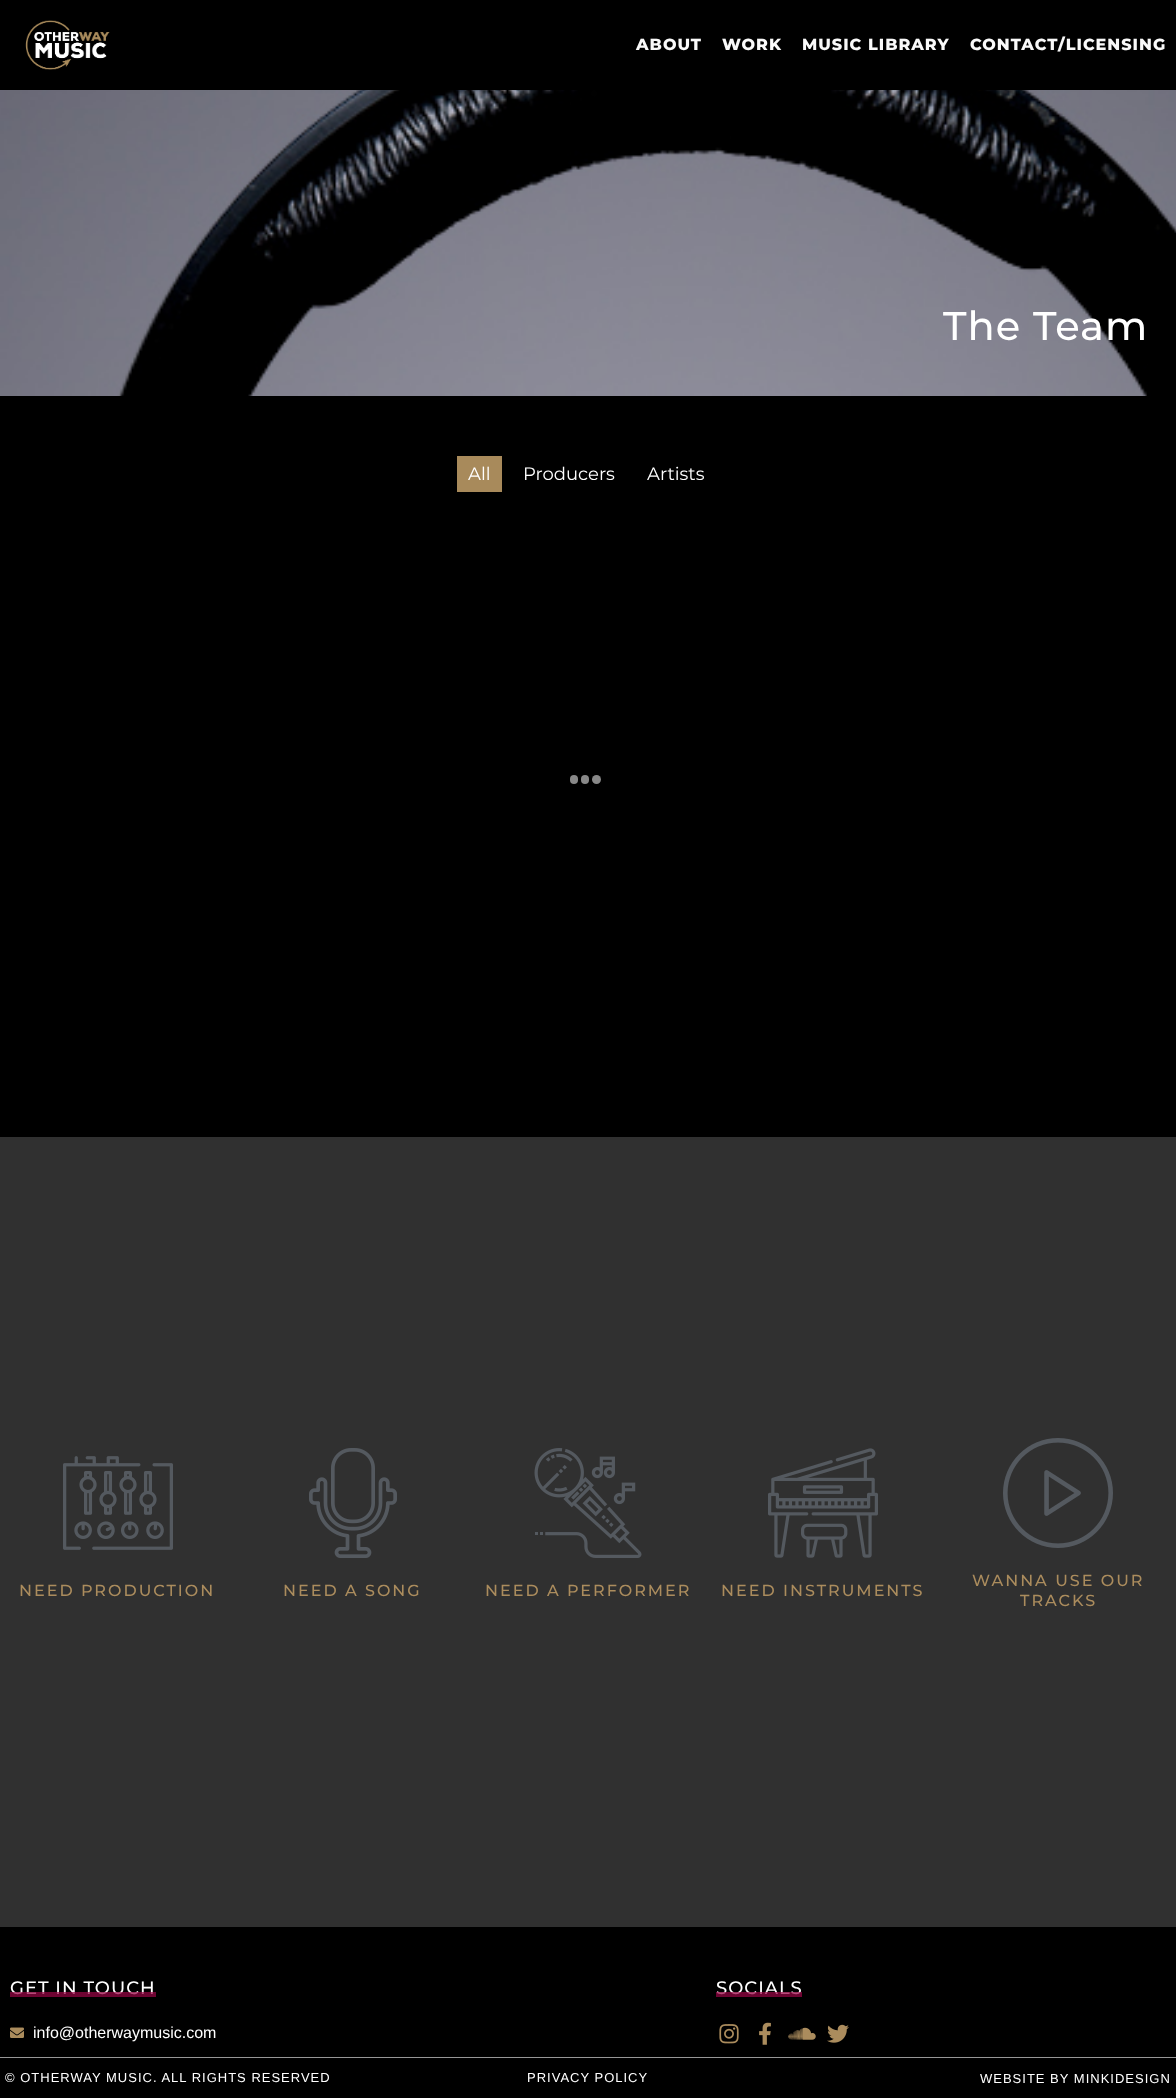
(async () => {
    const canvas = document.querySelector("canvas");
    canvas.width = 1176;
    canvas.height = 2098;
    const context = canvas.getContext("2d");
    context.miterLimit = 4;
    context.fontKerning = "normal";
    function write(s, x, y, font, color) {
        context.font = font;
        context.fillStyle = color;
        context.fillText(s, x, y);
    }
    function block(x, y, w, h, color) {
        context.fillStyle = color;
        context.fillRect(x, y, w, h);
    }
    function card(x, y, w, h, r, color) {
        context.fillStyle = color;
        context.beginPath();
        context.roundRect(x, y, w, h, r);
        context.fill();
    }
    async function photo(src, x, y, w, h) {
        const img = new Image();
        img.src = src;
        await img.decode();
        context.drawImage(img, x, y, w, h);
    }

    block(0, 0, 1176, 2098, "rgb(0, 0, 0)");
    await photo("media/1.png", 25, 20, 85, 50);
    context.letterSpacing = "1px";
    write("ABOUT", 636, 50, "800 16px Montserrat", "rgb(249, 249, 249)");
    write("WORK", 722, 50, "800 16px Montserrat", "rgb(249, 249, 249)");
    write("MUSIC LIBRARY", 802, 50, "800 16px Montserrat", "rgb(249, 249, 249)");
    write("CONTACT/LICENSING", 970, 50, "800 16px Montserrat", "rgb(249, 249, 249)");
    await photo("media/2.png", 0, 90, 1176, 306);
    write("The Team", 943, 340, "500 40px Montserrat", "rgb(255, 255, 255)");
    block(457, 456, 45, 36, "rgb(168, 138, 91)");
    context.letterSpacing = "0px";
    write("All", 468, 480, "18px Montserrat", "rgb(255, 255, 255)");
    write("Producers", 523, 480, "18px Montserrat", "rgb(255, 255, 255)");
    write("Artists", 647, 480, "18px Montserrat", "rgb(255, 255, 255)");
    card(570, 775, 8, 9, 4, "rgb(136, 136, 136)");
    card(581, 775, 8, 9, 4, "rgb(136, 136, 136)");
    context.beginPath();
    context.arc(596.5, 779.5, 4.5, 0, Math.PI * 2);
    context.fill();
    block(0, 1137, 1176, 790, "rgb(48, 48, 48)");
    await photo("media/3.png", 63, 1456, 110, 94);
    context.letterSpacing = "2px";
    write("NEED PRODUCTION", 19, 1596, "500 16px Montserrat", "rgb(171, 140, 93)");
    await photo("media/4.png", 309, 1448, 88, 110);
    write("NEED A SONG", 283, 1596, "500 16px Montserrat", "rgb(171, 140, 93)");
    await photo("media/5.png", 534, 1448, 108, 110);
    write("NEED A PERFORMER", 485, 1596, "500 16px Montserrat", "rgb(171, 140, 93)");
    await photo("media/6.png", 768, 1448, 110, 110);
    write("NEED INSTRUMENTS", 721, 1596, "500 16px Montserrat", "rgb(171, 140, 93)");
    await photo("media/7.png", 1003, 1438, 110, 110);
    write("WANNA USE OUR", 972, 1586, "500 16px Montserrat", "rgb(171, 140, 93)");
    write("TRACKS", 1020, 1606, "500 16px Montserrat", "rgb(171, 140, 93)");
    context.letterSpacing = "1px";
    write("GET IN TOUCH", 10, 1994, "500 18px Montserrat", "rgb(255, 255, 255)");
    block(10, 1992, 146, 5, "rgba(153, 6, 69, 0.72)");
    await photo("media/8.png", 10, 2027, 14, 11);
    context.letterSpacing = "0px";
    write("info@otherwaymusic.com", 33, 2038, "16px Liberation Sans", "rgb(255, 255, 255)");
    context.letterSpacing = "1px";
    write("SOCIALS", 716, 1994, "500 18px Montserrat", "rgb(255, 255, 255)");
    block(716, 1992, 86, 5, "rgba(153, 6, 69, 0.72)");
    await photo("media/9.png", 719, 2024, 20, 20);
    await photo("media/10.png", 759, 2022, 12, 23);
    await photo("media/11.png", 788, 2027, 28, 13);
    await photo("media/12.png", 827, 2024, 22, 19);
    block(0, 2057, 1176, 1, "rgb(150, 150, 150)");
    write("© OTHERWAY MUSIC. ALL RIGHTS RESERVED", 5, 2082, "13px Liberation Sans", "rgb(255, 255, 255)");
    write("PRIVACY POLICY", 527, 2082, "13px Liberation Sans", "rgb(255, 255, 255)");
    write("WEBSITE BY MINKIDESIGN", 980, 2083, "13px Liberation Sans", "rgb(255, 255, 255)");
})();
